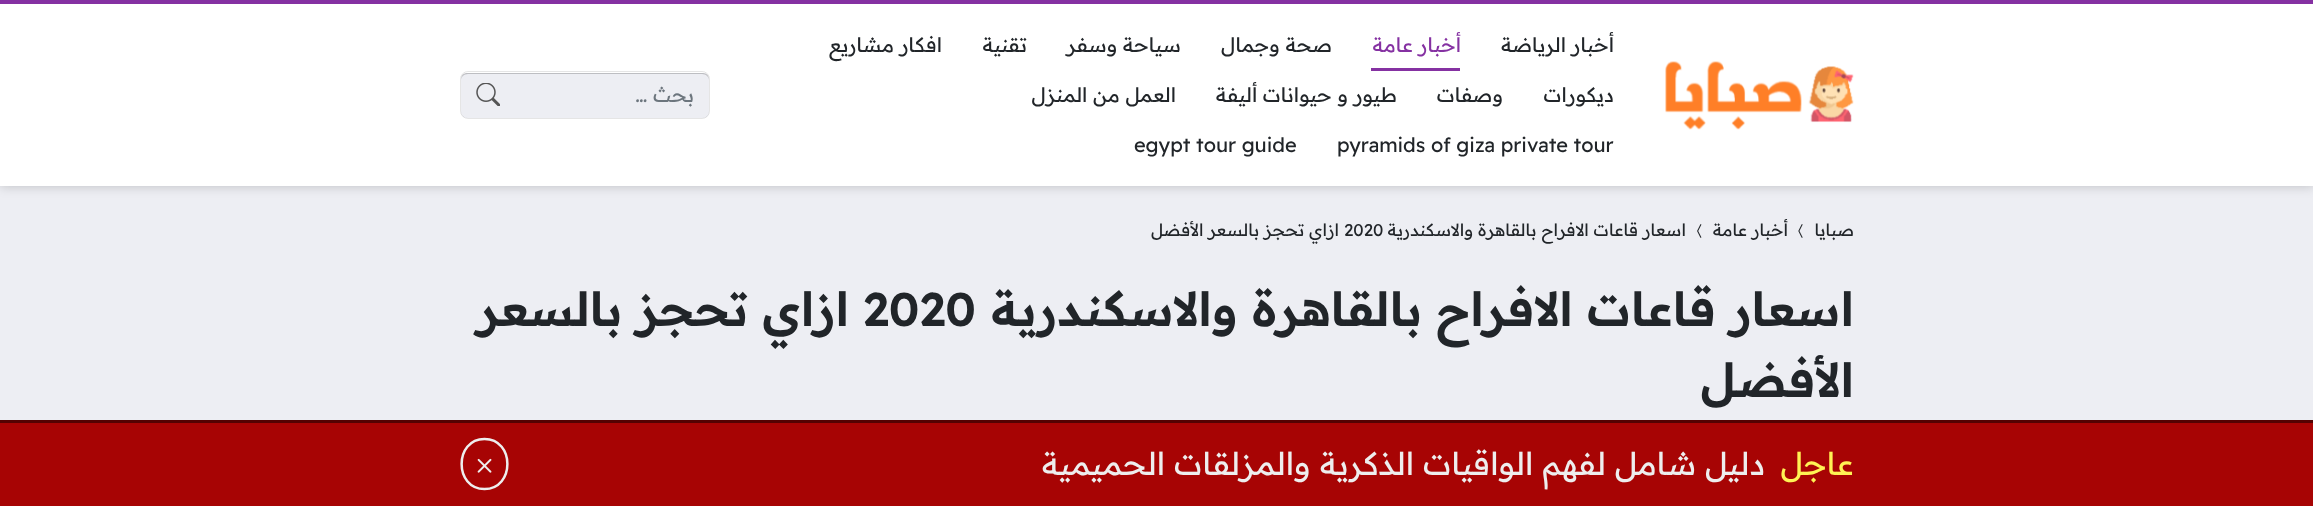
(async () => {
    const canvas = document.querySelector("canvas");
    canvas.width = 2313;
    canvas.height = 506;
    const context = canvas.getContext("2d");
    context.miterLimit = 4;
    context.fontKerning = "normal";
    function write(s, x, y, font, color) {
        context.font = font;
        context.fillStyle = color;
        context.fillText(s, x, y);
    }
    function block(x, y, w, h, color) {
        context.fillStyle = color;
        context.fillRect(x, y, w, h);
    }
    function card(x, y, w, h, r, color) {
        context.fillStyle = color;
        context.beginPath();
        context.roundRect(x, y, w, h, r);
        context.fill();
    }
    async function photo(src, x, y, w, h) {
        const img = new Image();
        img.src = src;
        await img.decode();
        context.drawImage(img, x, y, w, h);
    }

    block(0, 0, 2313, 506, "rgb(237, 238, 243)");
    context.fillStyle = "rgba(0, 0, 0, 0.2)";
    context.filter = "blur(6px)";
    context.beginPath();
    context.rect(0, 0, 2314, 186);
    context.fill();
    context.filter = "none";
    block(0, 0, 2313, 4, "rgb(133, 49, 162)");
    block(0, 4, 2313, 182, "rgb(255, 255, 255)");
    await photo("media/1.png", 1665, 61, 189, 69);
    context.direction = "rtl";
    write("أخبار الرياضة", 1614, 52, "20px Readex Pro", "rgb(33, 37, 41)");
    write("أخبار عامة", 1461, 52, "20px Readex Pro", "rgb(133, 49, 162)");
    block(1371, 68, 89, 3, "rgb(133, 49, 162)");
    write("صحة وجمال", 1332, 52, "20px Readex Pro", "rgb(33, 37, 41)");
    write("سياحة وسفر", 1181, 52, "20px Readex Pro", "rgb(33, 37, 41)");
    write("تقنية", 1027, 52, "20px Readex Pro", "rgb(33, 37, 41)");
    write("افكار مشاريع", 942, 52, "20px Readex Pro", "rgb(33, 37, 41)");
    write("ديكورات", 1614, 102, "20px Readex Pro", "rgb(33, 37, 41)");
    write("وصفات", 1503, 102, "20px Readex Pro", "rgb(33, 37, 41)");
    write("طيور و حيوانات أليفة", 1397, 102, "20px Readex Pro", "rgb(33, 37, 41)");
    write("العمل من المنزل", 1176, 102, "20px Readex Pro", "rgb(33, 37, 41)");
    context.direction = "ltr";
    write("pyramids of giza private tour", 1337, 152, "20px Readex Pro", "rgb(33, 37, 41)");
    write("egypt tour guide", 1134, 152, "20px Readex Pro", "rgb(33, 37, 41)");
    card(461, 73, 248, 45, 6, "rgb(237, 238, 243)");
    await photo("media/2.png", 476, 83, 24, 23);
    context.fillStyle = "rgba(0, 0, 0, 0.2)";
    context.beginPath();
    context.moveTo(468, 74);
    context.lineTo(702, 74);
    context.bezierCurveTo(706, 74, 709, 77, 709, 80);
    context.bezierCurveTo(709, 76, 707, 73, 703, 73);
    context.lineTo(466, 73);
    context.bezierCurveTo(462, 74, 461, 77, 461, 80);
    context.bezierCurveTo(461, 77, 464, 74, 468, 74);
    context.closePath();
    context.fill();
    context.beginPath();
    context.roundRect(460.5, 71.5, 249, 47, 7.5);
    context.strokeStyle = "rgba(0, 0, 0, 0.1)";
    context.stroke();
    context.direction = "rtl";
    write("بحث …", 694, 102, "20px Readex Pro", "rgb(108, 117, 125)");
    write("صبايا", 1854, 236, "17px Readex Pro", "rgb(33, 37, 41)");
    await photo("media/3.png", 1798, 224, 5, 14);
    write("أخبار عامة", 1788, 236, "17px Readex Pro", "rgb(33, 37, 41)");
    await photo("media/4.png", 1697, 224, 5, 14);
    write("اسعار قاعات الافراح بالقاهرة والاسكندرية", 1686, 236, "17px Readex Pro", "rgb(33, 37, 41)");
    context.direction = "ltr";
    write("2020", 1344, 236, "17px Readex Pro", "rgb(33, 37, 41)");
    context.direction = "rtl";
    write("ازاي تحجز بالسعر الأفضل", 1339, 236, "17px Readex Pro", "rgb(33, 37, 41)");
    write("اسعار قاعات الافراح بالقاهرة والاسكندرية", 1854, 326, "600 47.1px Readex Pro", "rgb(33, 37, 41)");
    context.direction = "ltr";
    write("2020", 863, 326, "600 47.1px Readex Pro", "rgb(33, 37, 41)");
    context.direction = "rtl";
    write("ازاي تحجز بالسعر", 849, 326, "600 47.1px Readex Pro", "rgb(33, 37, 41)");
    write("الأفضل", 1854, 397, "600 47.1px Readex Pro", "rgb(33, 37, 41)");
    block(0, 423, 2313, 83, "rgb(167, 4, 4)");
    block(0, 420, 2313, 3, "rgb(84, 2, 2)");
    write("عاجل", 1854, 475, "31.6px Readex Pro", "rgb(255, 242, 84)");
    write("دليل شامل لفهم الواقيات الذكرية والمزلقات الحميمية", 1765, 475, "31.6px Readex Pro", "rgb(238, 238, 238)");
    context.beginPath();
    context.moveTo(484.5, 439);
    context.bezierCurveTo(515, 439, 515, 489, 484.5, 489);
    context.bezierCurveTo(454, 489, 454, 439, 484.5, 439);
    context.closePath();
    context.strokeStyle = "rgb(238, 238, 238)";
    context.lineWidth = 2.5;
    context.stroke();
    await photo("media/5.png", 477, 458, 15, 15);
})();
